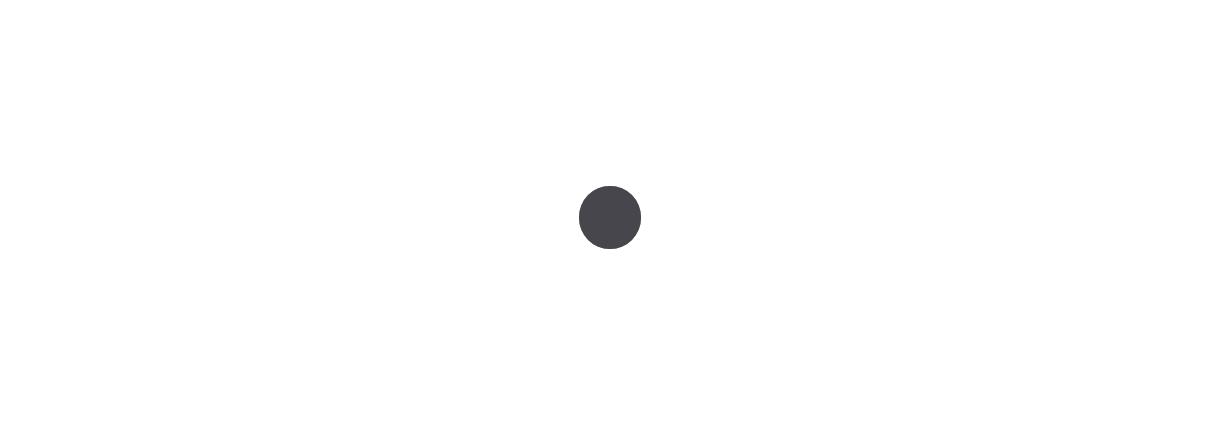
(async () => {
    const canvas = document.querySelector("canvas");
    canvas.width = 1219;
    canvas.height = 433;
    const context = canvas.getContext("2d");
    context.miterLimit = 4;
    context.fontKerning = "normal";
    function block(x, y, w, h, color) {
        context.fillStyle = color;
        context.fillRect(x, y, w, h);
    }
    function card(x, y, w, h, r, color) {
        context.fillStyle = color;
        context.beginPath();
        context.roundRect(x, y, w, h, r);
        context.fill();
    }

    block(0, 0, 1219, 433, "rgb(255, 255, 255)");
    card(579, 186, 62, 63, 31, "rgb(101, 101, 106)");
    card(579, 186, 62, 63, 31, "rgba(63, 62, 69, 0.8)");
})();
